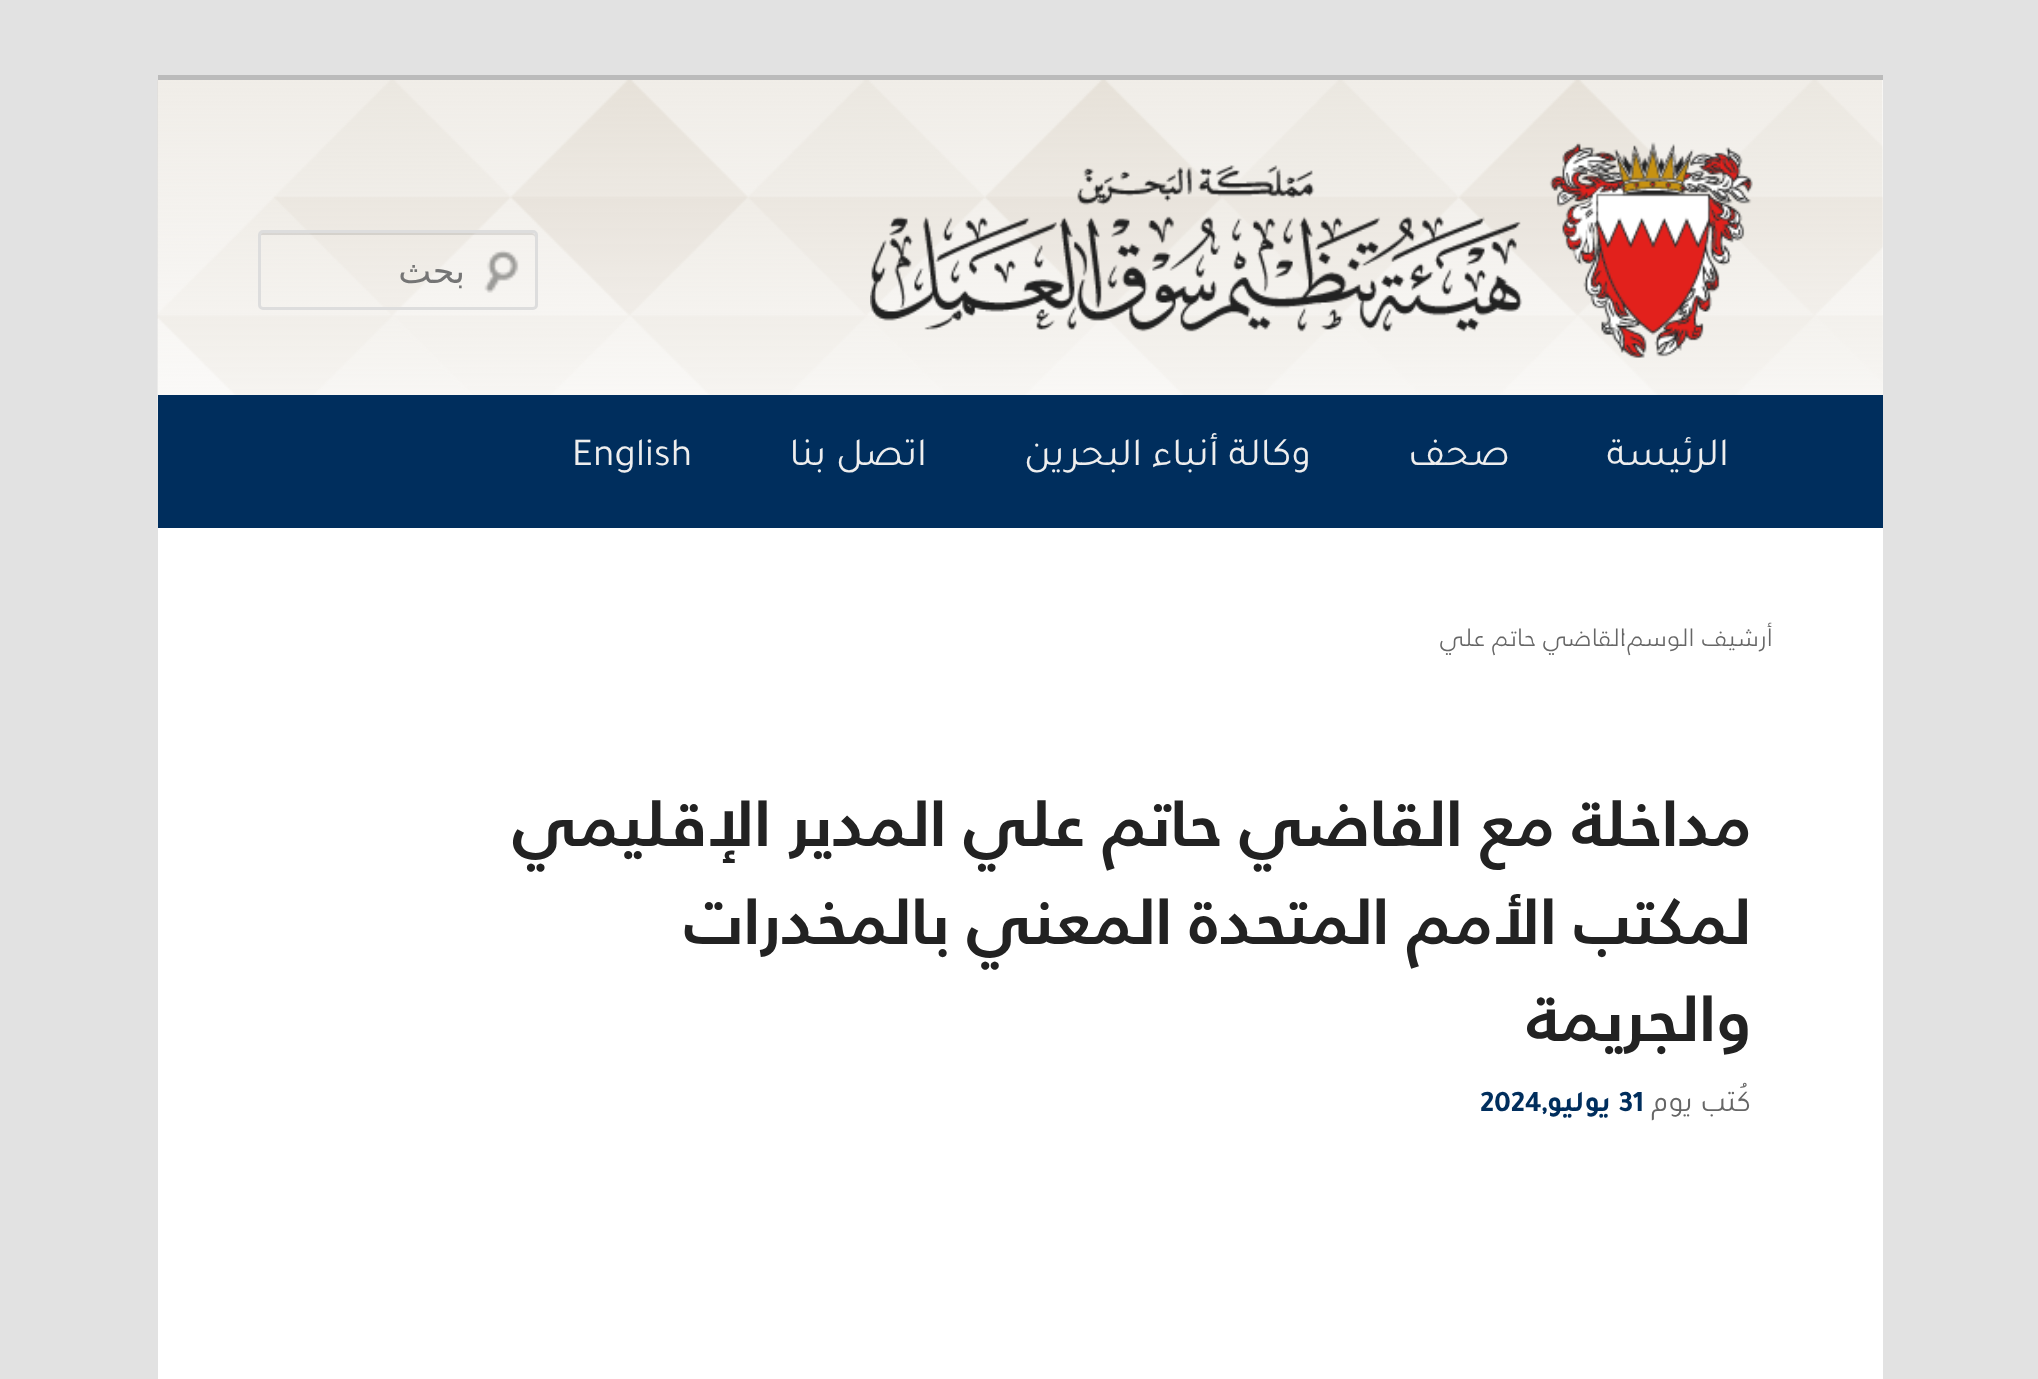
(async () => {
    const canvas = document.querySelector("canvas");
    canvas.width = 2038;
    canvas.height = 1379;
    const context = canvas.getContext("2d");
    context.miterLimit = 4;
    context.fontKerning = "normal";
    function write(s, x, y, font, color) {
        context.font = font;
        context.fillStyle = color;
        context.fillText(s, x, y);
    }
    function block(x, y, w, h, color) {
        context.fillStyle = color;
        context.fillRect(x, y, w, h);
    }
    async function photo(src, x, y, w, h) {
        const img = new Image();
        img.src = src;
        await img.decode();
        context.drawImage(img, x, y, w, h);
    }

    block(0, 0, 2038, 1379, "rgb(226, 226, 226)");
    block(158, 80, 1725, 1299, "rgb(255, 255, 255)");
    await photo("media/1.png", 157, 80, 1726, 340);
    block(158, 75, 1725, 5, "rgb(187, 187, 187)");
    await photo("media/2.png", 870, 142, 883, 216);
    await photo("media/3.png", 484, 250, 35, 43);
    context.fillStyle = "rgba(0, 0, 0, 0.1)";
    context.beginPath();
    context.moveTo(262, 235);
    context.lineTo(532, 235);
    context.bezierCurveTo(534, 235, 535, 236, 535, 238);
    context.lineTo(535, 236);
    context.bezierCurveTo(535, 234, 534, 233, 532, 233);
    context.lineTo(262, 233);
    context.bezierCurveTo(261, 233, 260, 234, 260, 236);
    context.lineTo(260, 238);
    context.bezierCurveTo(260, 236, 261, 235, 262, 235);
    context.closePath();
    context.fill();
    context.beginPath();
    context.roundRect(259.5, 231.5, 277, 77, 3.5);
    context.strokeStyle = "rgb(221, 221, 221)";
    context.lineWidth = 3;
    context.stroke();
    context.direction = "rtl";
    write("بحث", 465, 283, "35px DejaVu Sans", "rgb(117, 117, 117)");
    block(158, 395, 1725, 133, "rgb(0, 46, 93)");
    write("الرئيسة", 1729, 465, "40px Tajawal", "rgb(238, 238, 238)");
    write("صحف", 1510, 465, "40px Tajawal", "rgb(238, 238, 238)");
    write("وكالة أنباء البحرين", 1311, 465, "40px Tajawal", "rgb(238, 238, 238)");
    write("اتصل بنا", 927, 465, "40px Tajawal", "rgb(238, 238, 238)");
    context.direction = "ltr";
    write("English", 572, 465, "40px Tajawal", "rgb(238, 238, 238)");
    context.letterSpacing = "2.5px";
    context.wordSpacing = "-2px";
    context.direction = "rtl";
    write("أرشيف الوسم:", 1773, 646, "300 25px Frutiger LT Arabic", "rgb(102, 102, 102)");
    write("القاضي حاتم علي", 1626, 646, "300 25px Frutiger LT Arabic", "rgb(102, 102, 102)");
    context.letterSpacing = "0px";
    context.wordSpacing = "0px";
    write("مداخلة مع القاضي حاتم علي المدير الإقليمي", 1751, 846, "bold 65px Frutiger LT Arabic", "rgb(34, 34, 34)");
    write("لمكتب الأمم المتحدة المعني بالمخدرات", 1751, 944, "bold 65px Frutiger LT Arabic", "rgb(34, 34, 34)");
    write("والجريمة", 1751, 1041, "bold 65px Frutiger LT Arabic", "rgb(34, 34, 34)");
    write("كُتب يوم", 1751, 1111, "30px Tajawal", "rgb(102, 102, 102)");
    context.direction = "ltr";
    write("31", 1618, 1111, "bold 30px Tajawal", "rgb(0, 46, 93)");
    context.direction = "rtl";
    write("يوليو,", 1611, 1111, "bold 30px Tajawal", "rgb(0, 46, 93)");
    context.direction = "ltr";
    write("2024", 1480, 1111, "bold 30px Tajawal", "rgb(0, 46, 93)");
})();
